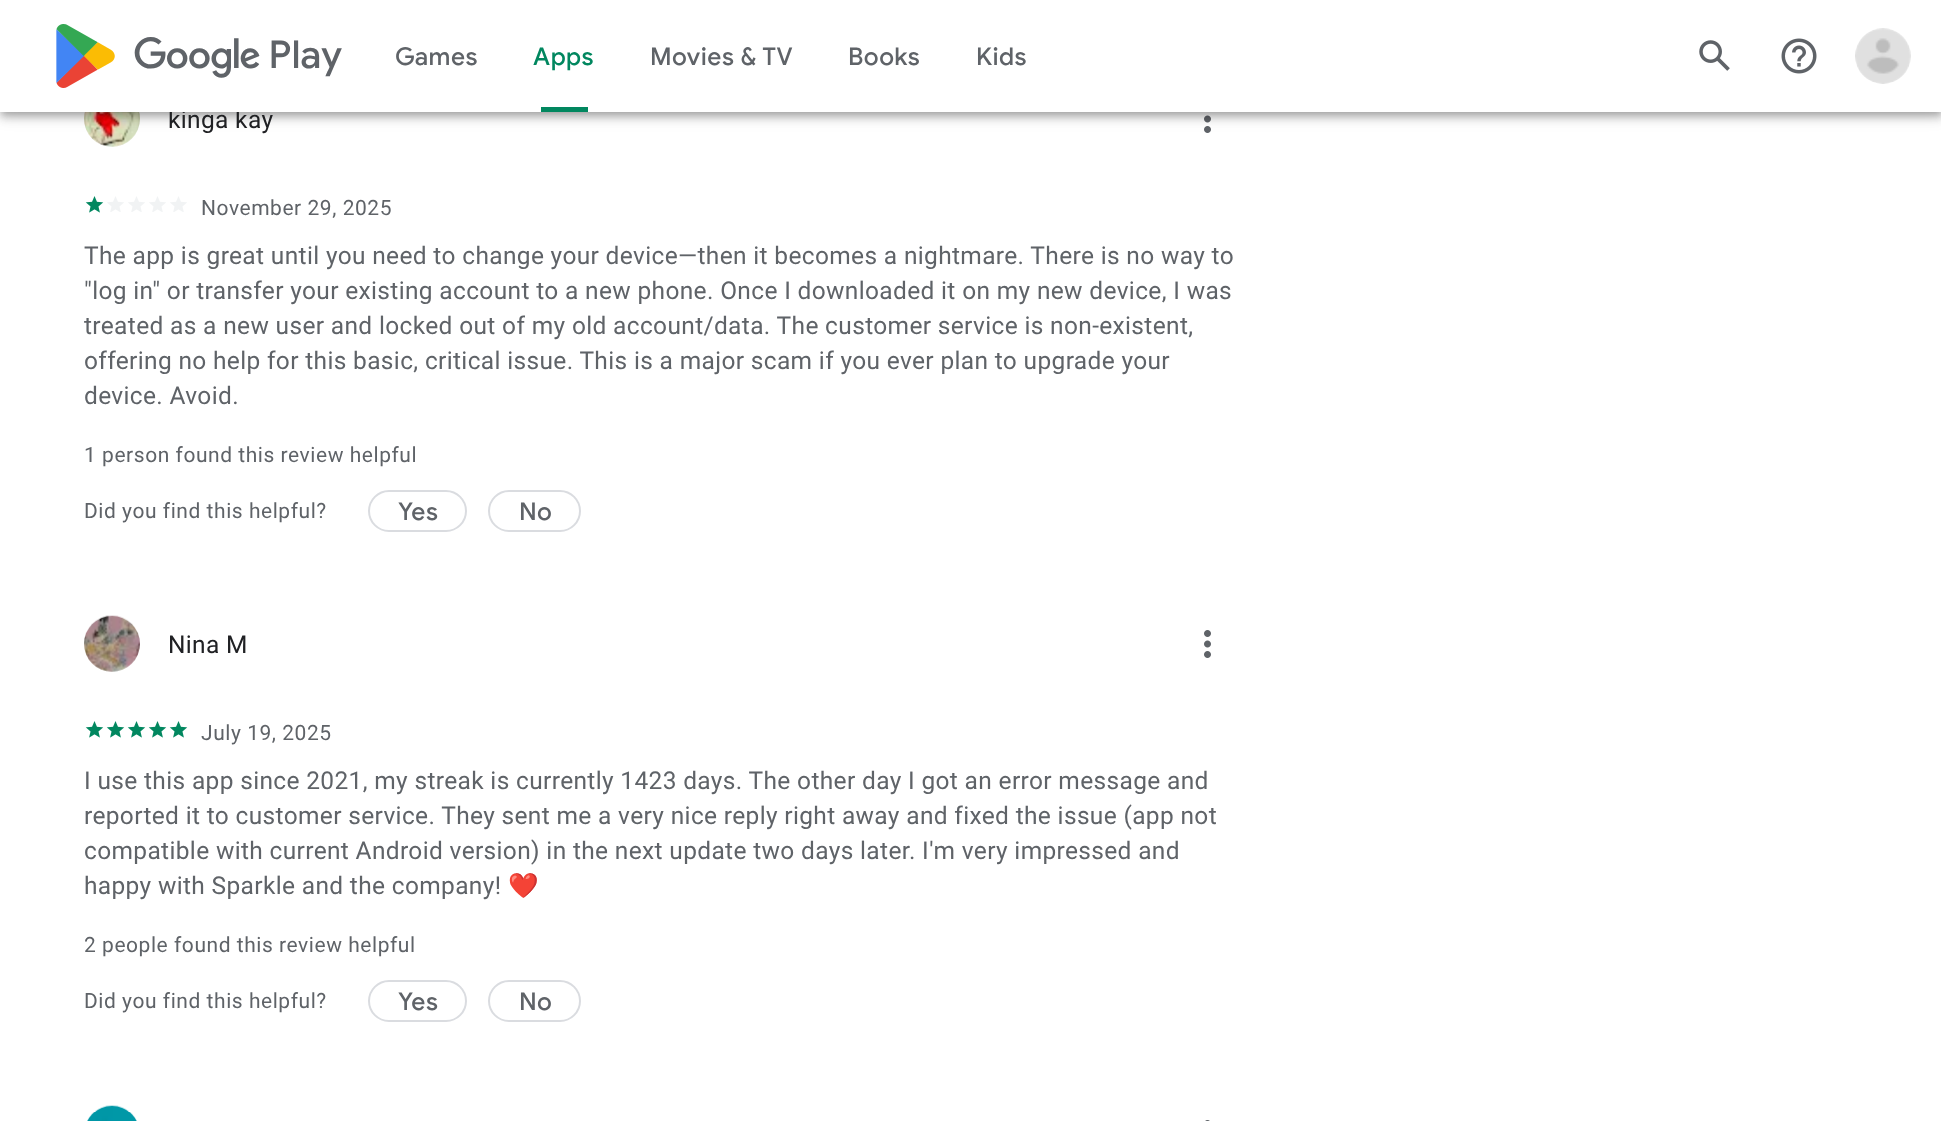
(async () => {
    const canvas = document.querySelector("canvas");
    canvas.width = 1941;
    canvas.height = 1121;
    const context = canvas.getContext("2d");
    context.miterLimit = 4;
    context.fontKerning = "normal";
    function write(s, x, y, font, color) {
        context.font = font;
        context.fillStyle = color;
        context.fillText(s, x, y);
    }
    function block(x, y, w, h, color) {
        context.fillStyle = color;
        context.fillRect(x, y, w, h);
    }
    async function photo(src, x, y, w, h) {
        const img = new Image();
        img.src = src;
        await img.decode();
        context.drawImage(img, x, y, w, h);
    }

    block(0, 0, 1941, 1121, "rgb(255, 255, 255)");
    await photo("media/5.png", 84, 112, 56, 35);
    await photo("media/6.png", 1204, 115, 7, 18);
    context.fillStyle = "rgba(0, 0, 0, 0.2)";
    context.filter = "blur(3.5px)";
    context.beginPath();
    context.rect(2, 5, 1939, 109);
    context.fill();
    context.filter = "none";
    context.fillStyle = "rgba(0, 0, 0, 0.12)";
    context.filter = "blur(9px)";
    context.beginPath();
    context.rect(0, 2, 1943, 112);
    context.fill();
    context.filter = "none";
    context.fillStyle = "rgba(0, 0, 0, 0.14)";
    context.filter = "blur(4.5px)";
    context.beginPath();
    context.rect(0, 7, 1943, 112);
    context.fill();
    context.filter = "none";
    context.letterSpacing = "0.35px";
    write("kinga kay", 168, 128, "24.5px Roboto", "rgb(32, 33, 36)");
    block(0, 0, 1941, 112, "rgb(255, 255, 255)");
    await photo("media/1.png", 56, 24, 59, 64);
    context.letterSpacing = "0px";
    write("google_logo Play", 133, 68, "500 38.5px Google Sans", "rgb(95, 99, 104)");
    context.letterSpacing = "0.5px";
    write("Games", 395, 65, "500 24.5px Google Sans", "rgb(95, 99, 104)");
    write("Apps", 533, 65, "500 24.5px Google Sans", "rgb(1, 135, 95)");
    block(541, 107, 47, 5, "rgb(1, 135, 95)");
    write("Movies & TV", 650, 65, "500 24.5px Google Sans", "rgb(95, 99, 104)");
    write("Books", 848, 65, "500 24.5px Google Sans", "rgb(95, 99, 104)");
    write("Kids", 976, 65, "500 24.5px Google Sans", "rgb(95, 99, 104)");
    await photo("media/2.png", 1699, 40, 31, 31);
    await photo("media/3.png", 1781, 38, 36, 36);
    await photo("media/4.png", 1855, 28, 56, 56);
    await photo("media/7.png", 85, 196, 19, 17);
    await photo("media/8.png", 107, 196, 17, 16);
    await photo("media/8.png", 128, 196, 17, 16);
    await photo("media/8.png", 149, 196, 17, 16);
    await photo("media/8.png", 170, 196, 17, 16);
    context.letterSpacing = "0.55px";
    write("November 29, 2025", 201, 215, "21px Roboto", "rgb(95, 99, 104)");
    context.letterSpacing = "0.35px";
    write("The app is great until you need to change your device—then it becomes a nightmare. There is no way to", 84, 264, "24.5px Roboto", "rgb(95, 99, 104)");
    write("\"log in\" or transfer your existing account to a new phone. Once I downloaded it on my new device, I was", 84, 299, "24.5px Roboto", "rgb(95, 99, 104)");
    write("treated as a new user and locked out of my old account/data. The customer service is non-existent,", 84, 334, "24.5px Roboto", "rgb(95, 99, 104)");
    write("offering no help for this basic, critical issue. This is a major scam if you ever plan to upgrade your", 84, 369, "24.5px Roboto", "rgb(95, 99, 104)");
    write("device. Avoid.", 84, 404, "24.5px Roboto", "rgb(95, 99, 104)");
    context.letterSpacing = "0.55px";
    write("1 person found this review helpful", 84, 462, "21px Roboto", "rgb(95, 99, 104)");
    write("Did you find this helpful?", 84, 518, "21px Roboto", "rgb(95, 99, 104)");
    context.beginPath();
    context.roundRect(369, 491, 97, 40, 20);
    context.strokeStyle = "rgb(218, 220, 224)";
    context.lineWidth = 2;
    context.stroke();
    context.letterSpacing = "0.5px";
    write("Yes", 398, 520, "500 24.5px Google Sans", "rgb(95, 99, 104)");
    context.beginPath();
    context.roundRect(489, 491, 91, 40, 20);
    context.stroke();
    write("No", 519, 520, "500 24.5px Google Sans", "rgb(95, 99, 104)");
    await photo("media/9.png", 84, 615, 56, 57);
    context.letterSpacing = "0.35px";
    write("Nina M", 168, 653, "24.5px Roboto", "rgb(32, 33, 36)");
    await photo("media/10.png", 1204, 630, 7, 28);
    await photo("media/7.png", 85, 721, 19, 17);
    await photo("media/7.png", 106, 721, 19, 17);
    await photo("media/7.png", 127, 721, 19, 17);
    await photo("media/7.png", 148, 721, 19, 17);
    await photo("media/7.png", 169, 721, 19, 17);
    context.letterSpacing = "0.55px";
    write("July 19, 2025", 201, 740, "21px Roboto", "rgb(95, 99, 104)");
    context.letterSpacing = "0.35px";
    write("I use this app since 2021, my streak is currently 1423 days. The other day I got an error message and", 84, 789, "24.5px Roboto", "rgb(95, 99, 104)");
    write("reported it to customer service. They sent me a very nice reply right away and fixed the issue (app not", 84, 824, "24.5px Roboto", "rgb(95, 99, 104)");
    write("compatible with current Android version) in the next update two days later. I'm very impressed and", 84, 859, "24.5px Roboto", "rgb(95, 99, 104)");
    write("happy with Sparkle and the company!", 84, 894, "24.5px Roboto", "rgb(95, 99, 104)");
    write("❤️", 508, 894, "24.5px Noto Color Emoji", "rgb(95, 99, 104)");
    context.letterSpacing = "0.55px";
    write("2 people found this review helpful", 84, 952, "21px Roboto", "rgb(95, 99, 104)");
    write("Did you find this helpful?", 84, 1008, "21px Roboto", "rgb(95, 99, 104)");
    context.beginPath();
    context.roundRect(369, 981, 97, 40, 20);
    context.stroke();
    context.letterSpacing = "0.5px";
    write("Yes", 398, 1010, "500 24.5px Google Sans", "rgb(95, 99, 104)");
    context.beginPath();
    context.roundRect(489, 981, 91, 40, 20);
    context.stroke();
    write("No", 519, 1010, "500 24.5px Google Sans", "rgb(95, 99, 104)");
    await photo("media/11.png", 87, 1105, 50, 16);
    await photo("media/12.png", 1205, 1120, 5, 1);
})();
